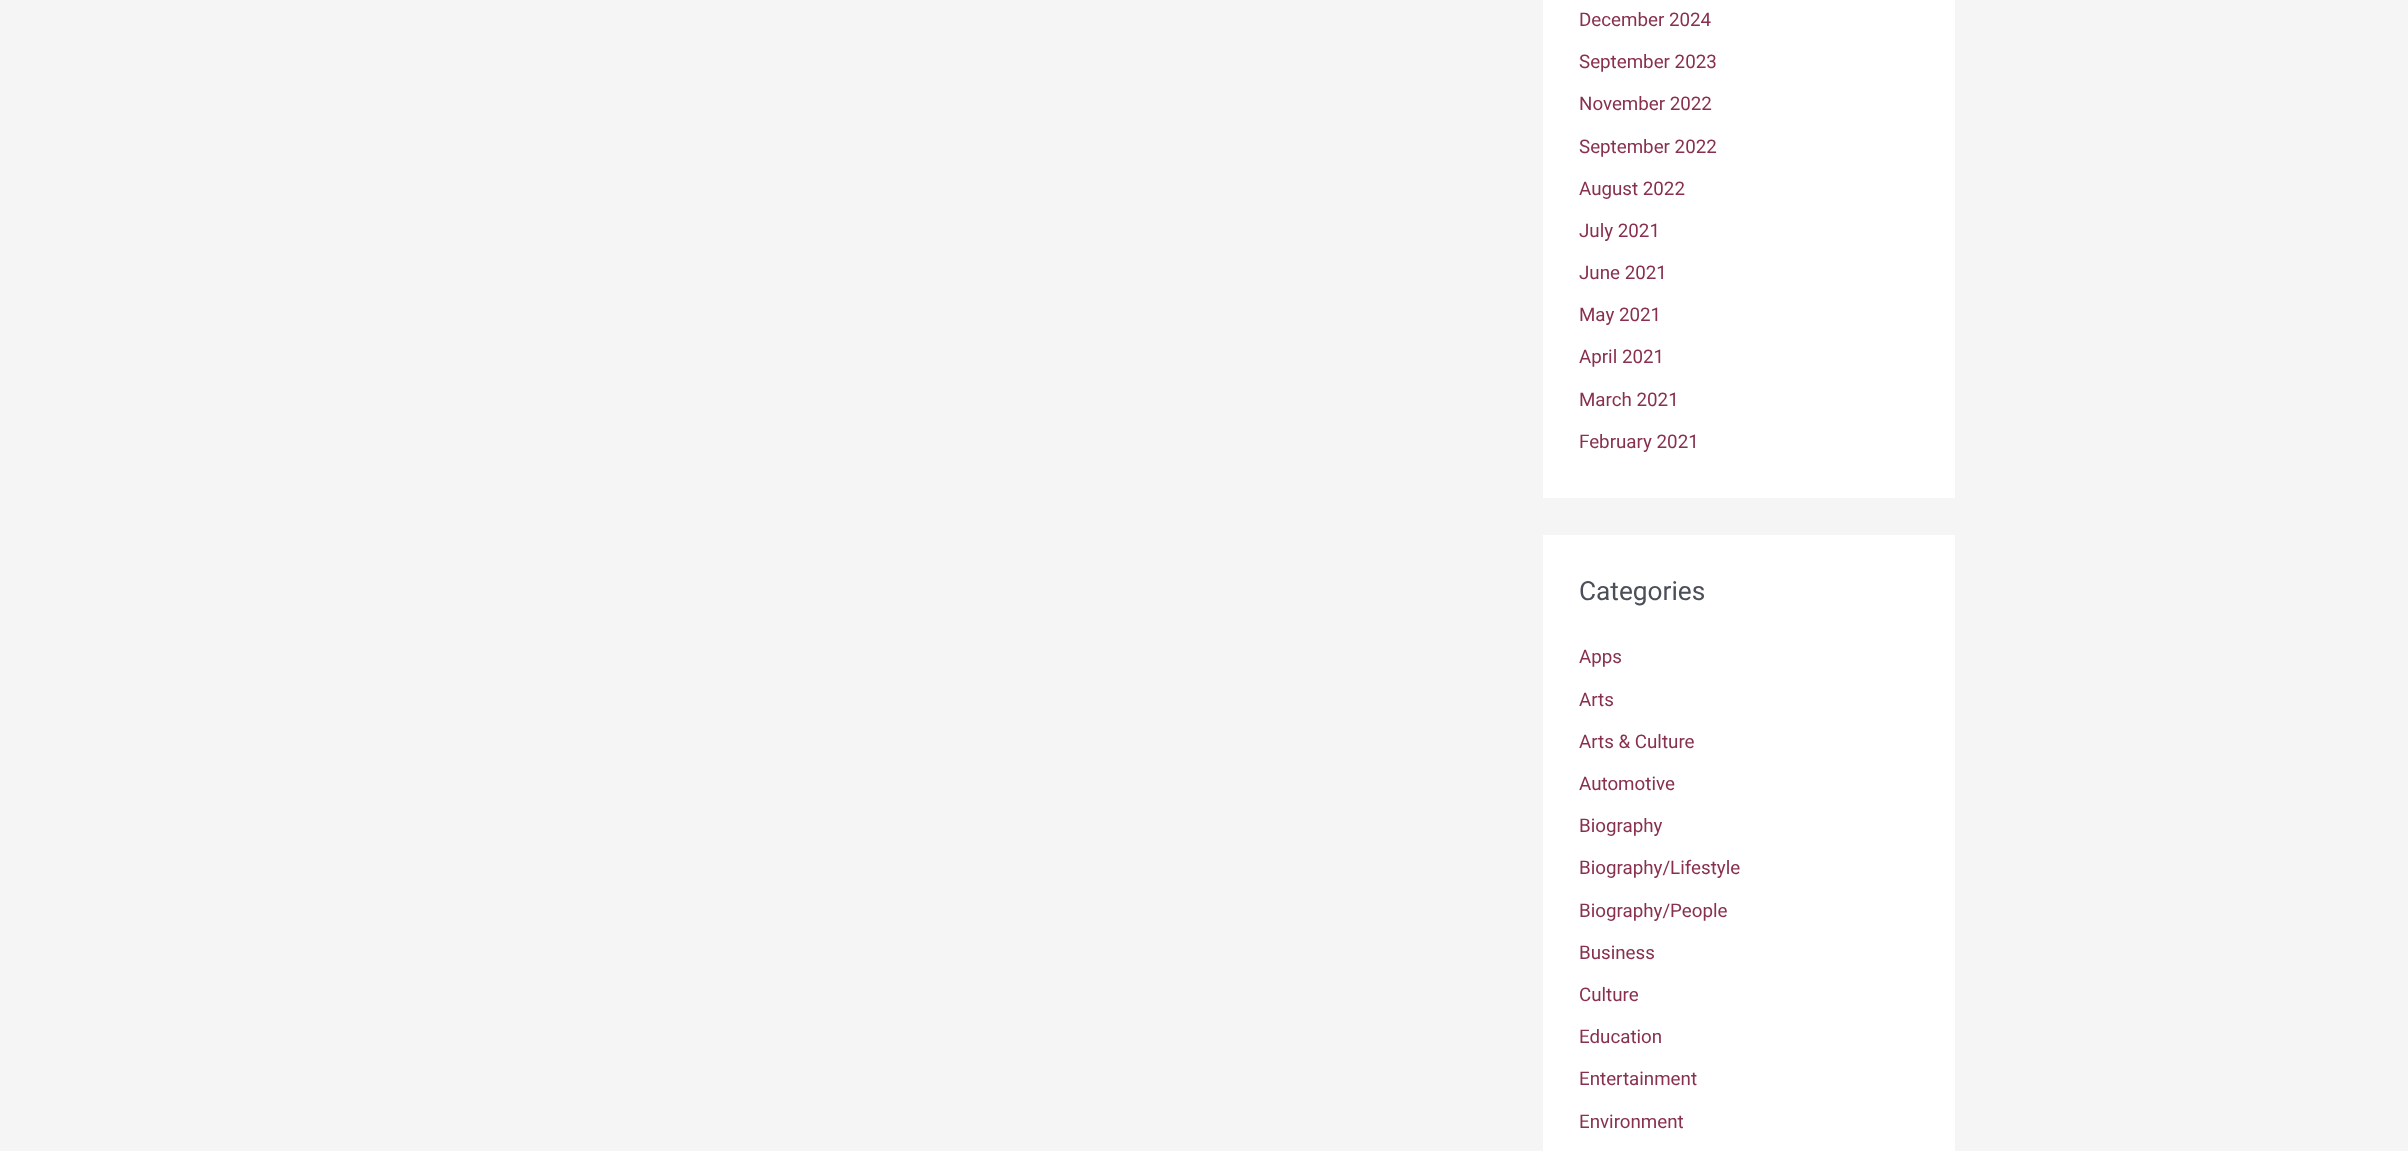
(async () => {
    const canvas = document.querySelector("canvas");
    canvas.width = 2408;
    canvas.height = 1151;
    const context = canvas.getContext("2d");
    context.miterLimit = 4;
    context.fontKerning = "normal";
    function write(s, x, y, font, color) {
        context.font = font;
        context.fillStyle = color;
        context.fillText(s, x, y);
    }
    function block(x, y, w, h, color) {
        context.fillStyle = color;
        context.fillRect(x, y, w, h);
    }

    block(0, 0, 2408, 1151, "rgb(245, 245, 245)");
    block(1543, 0, 412, 498, "rgb(255, 255, 255)");
    write("December 2024", 1579, 26, "18.75px Roboto", "rgb(136, 48, 78)");
    write("September 2023", 1579, 68, "18.75px Roboto", "rgb(136, 48, 78)");
    write("November 2022", 1579, 110, "18.75px Roboto", "rgb(136, 48, 78)");
    write("September 2022", 1579, 153, "18.75px Roboto", "rgb(136, 48, 78)");
    write("August 2022", 1579, 195, "18.75px Roboto", "rgb(136, 48, 78)");
    write("July 2021", 1579, 237, "18.75px Roboto", "rgb(136, 48, 78)");
    write("June 2021", 1579, 279, "18.75px Roboto", "rgb(136, 48, 78)");
    write("May 2021", 1579, 321, "18.75px Roboto", "rgb(136, 48, 78)");
    write("April 2021", 1579, 363, "18.75px Roboto", "rgb(136, 48, 78)");
    write("March 2021", 1579, 406, "18.75px Roboto", "rgb(136, 48, 78)");
    write("February 2021", 1579, 448, "18.75px Roboto", "rgb(136, 48, 78)");
    block(1543, 535, 412, 616, "rgb(255, 255, 255)");
    write("Categories", 1579, 600, "26.25px Roboto", "rgb(75, 79, 88)");
    write("Apps", 1579, 663, "18.75px Roboto", "rgb(136, 48, 78)");
    write("Arts", 1579, 706, "18.75px Roboto", "rgb(136, 48, 78)");
    write("Arts & Culture", 1579, 748, "18.75px Roboto", "rgb(136, 48, 78)");
    write("Automotive", 1579, 790, "18.75px Roboto", "rgb(136, 48, 78)");
    write("Biography", 1579, 832, "18.75px Roboto", "rgb(136, 48, 78)");
    write("Biography/Lifestyle", 1579, 874, "18.75px Roboto", "rgb(136, 48, 78)");
    write("Biography/People", 1579, 917, "18.75px Roboto", "rgb(136, 48, 78)");
    write("Business", 1579, 959, "18.75px Roboto", "rgb(136, 48, 78)");
    write("Culture", 1579, 1001, "18.75px Roboto", "rgb(136, 48, 78)");
    write("Education", 1579, 1043, "18.75px Roboto", "rgb(136, 48, 78)");
    write("Entertainment", 1579, 1085, "18.75px Roboto", "rgb(136, 48, 78)");
    write("Environment", 1579, 1128, "18.75px Roboto", "rgb(136, 48, 78)");
})();
